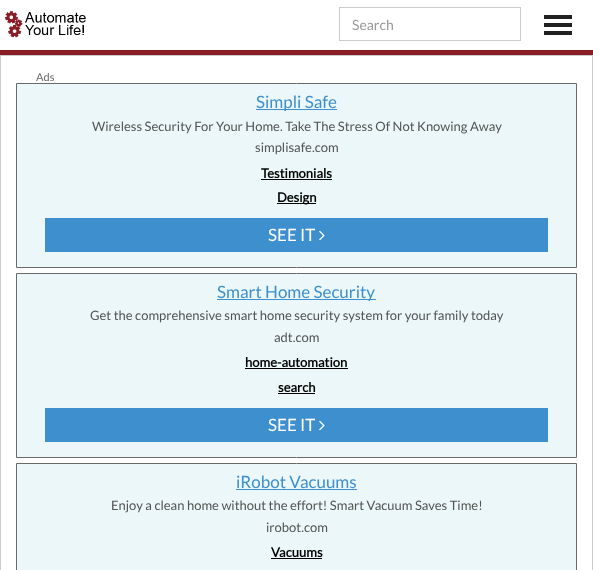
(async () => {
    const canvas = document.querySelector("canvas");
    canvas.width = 593;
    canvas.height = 570;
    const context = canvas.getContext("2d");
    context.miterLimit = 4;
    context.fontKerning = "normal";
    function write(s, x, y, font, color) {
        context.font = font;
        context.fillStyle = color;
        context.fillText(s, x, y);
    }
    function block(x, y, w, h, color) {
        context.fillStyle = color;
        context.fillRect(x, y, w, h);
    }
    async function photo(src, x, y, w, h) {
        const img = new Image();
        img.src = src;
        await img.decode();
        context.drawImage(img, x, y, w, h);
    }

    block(0, 0, 593, 570, "rgb(255, 255, 255)");
    await photo("media/1.png", 5, 11, 81, 27);
    context.strokeStyle = "rgb(204, 204, 204)";
    context.strokeRect(339.5, 7.5, 181, 33);
    write("Search", 352, 30, "14px Lato", "rgb(153, 153, 153)");
    block(544, 15, 28, 4, "rgb(33, 33, 33)");
    block(544, 23, 28, 4, "rgb(33, 33, 33)");
    block(544, 31, 28, 4, "rgb(33, 33, 33)");
    block(0, 50, 593, 5, "rgb(136, 29, 37)");
    context.strokeRect(0.5, 55.5, 592, 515);
    write("Ads", 36, 81, "11px Lato", "rgb(105, 105, 105)");
    context.fillStyle = "rgb(235, 247, 248)";
    context.beginPath();
    context.rect(16.5, 83.5, 560, 184);
    context.fill();
    context.strokeStyle = "rgb(105, 105, 105)";
    context.stroke();
    block(256, 109, 81, 1, "rgb(61, 143, 205)");
    write("Simpli Safe", 256, 108, "17px Lato", "rgb(61, 143, 205)");
    write("Wireless Security For Your Home. Take The Stress Of Not Knowing Away", 92, 131, "13px Lato", "rgb(84, 84, 84)");
    write("simplisafe.com", 255, 152, "13px Lato", "rgb(84, 84, 84)");
    write("Testimonials", 261, 178, "bold 13px Lato", "rgb(0, 0, 0)");
    block(261, 179, 71, 1, "rgb(0, 0, 0)");
    block(277, 203, 39, 1, "rgb(0, 0, 0)");
    write("Design", 277, 202, "bold 13px Lato", "rgb(0, 0, 0)");
    block(45, 218, 503, 34, "rgb(61, 143, 205)");
    write("SEE IT", 268, 241, "17px Lato", "rgb(255, 255, 255)");
    await photo("media/2.png", 319, 230, 6, 11);
    context.fillStyle = "rgb(235, 247, 248)";
    context.beginPath();
    context.rect(16.5, 273.5, 560, 184);
    context.fill();
    context.stroke();
    block(217, 299, 159, 1, "rgb(61, 143, 205)");
    write("Smart Home Security", 217, 298, "17px Lato", "rgb(61, 143, 205)");
    write("Get the comprehensive smart home security system for your family today", 90, 320, "13px Lato", "rgb(84, 84, 84)");
    write("adt.com", 274, 342, "13px Lato", "rgb(84, 84, 84)");
    write("home-automation", 245, 367, "bold 13px Lato", "rgb(0, 0, 0)");
    block(245, 368, 103, 1, "rgb(0, 0, 0)");
    write("search", 278, 392, "bold 13px Lato", "rgb(0, 0, 0)");
    block(278, 393, 37, 1, "rgb(0, 0, 0)");
    block(45, 408, 503, 34, "rgb(61, 143, 205)");
    write("SEE IT", 268, 431, "17px Lato", "rgb(255, 255, 255)");
    await photo("media/2.png", 319, 420, 6, 11);
    context.fillStyle = "rgb(235, 247, 248)";
    context.beginPath();
    context.rect(16.5, 463.5, 560, 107);
    context.fill();
    context.stroke();
    write("iRobot Vacuums", 236, 488, "17px Lato", "rgb(61, 143, 205)");
    block(236, 489, 121, 1, "rgb(61, 143, 205)");
    write("Enjoy a clean home without the effort! Smart Vacuum Saves Time!", 111, 510, "13px Lato", "rgb(84, 84, 84)");
    write("irobot.com", 266, 532, "13px Lato", "rgb(84, 84, 84)");
    write("Vacuums", 271, 557, "bold 13px Lato", "rgb(0, 0, 0)");
    block(271, 558, 51, 1, "rgb(0, 0, 0)");
})();
